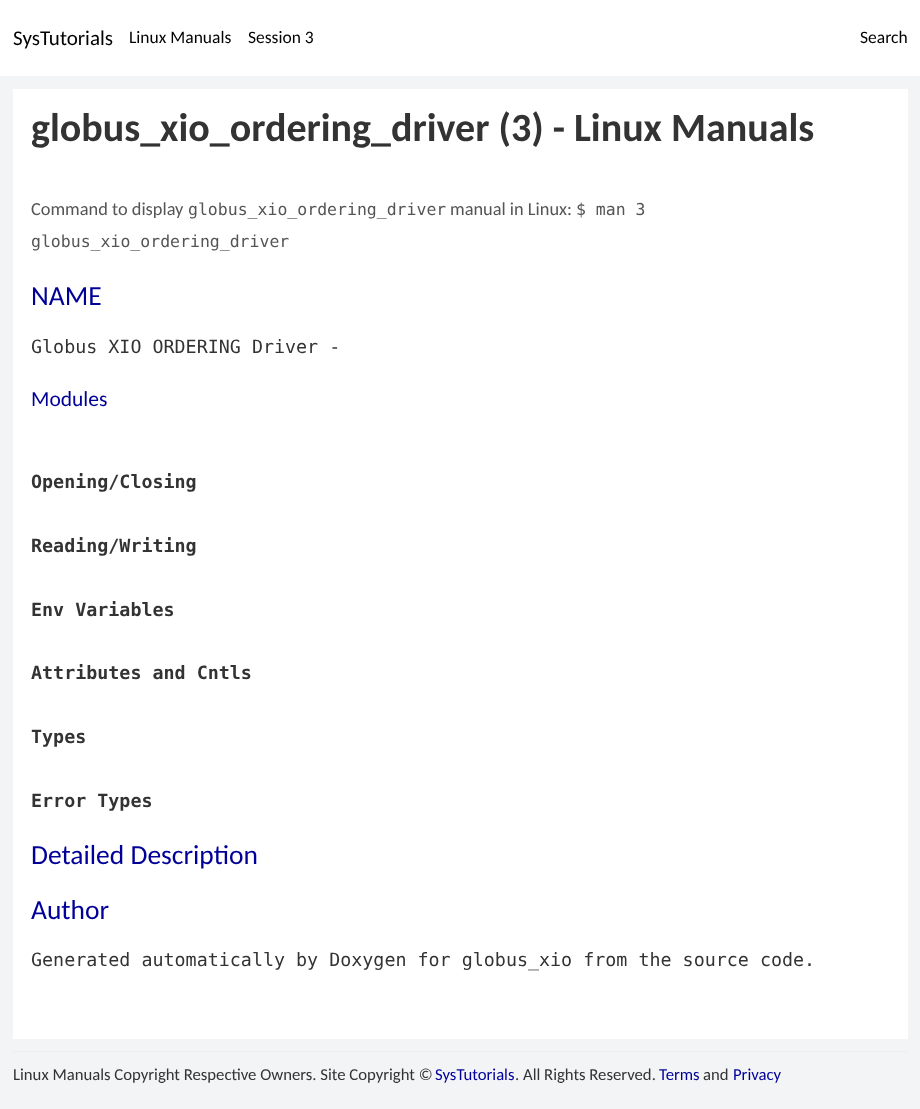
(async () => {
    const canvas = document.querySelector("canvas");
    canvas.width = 920;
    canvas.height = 1109;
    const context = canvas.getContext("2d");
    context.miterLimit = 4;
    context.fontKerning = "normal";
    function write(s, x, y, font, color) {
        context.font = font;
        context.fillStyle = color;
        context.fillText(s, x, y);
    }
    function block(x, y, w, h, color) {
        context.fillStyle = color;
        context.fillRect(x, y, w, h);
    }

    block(0, 0, 920, 1109, "rgb(243, 244, 246)");
    block(0, 0, 920, 76, "rgb(255, 255, 255)");
    write("SysTutorials", 13, 45, "21px Carlito", "rgb(0, 0, 0)");
    write("Linux Manuals", 129, 43, "17.5px Carlito", "rgb(0, 0, 0)");
    write("Session 3", 248, 43, "17.5px Carlito", "rgb(0, 0, 0)");
    write("Search", 860, 43, "17.5px Carlito", "rgb(0, 0, 0)");
    block(13, 89, 895, 950, "rgb(255, 255, 255)");
    write("globus_xio_ordering_driver (3) - Linux Manuals", 31, 141, "bold 40px Carlito", "rgb(51, 51, 51)");
    write("Command to display", 31, 215, "18.35px Carlito", "rgb(85, 85, 85)");
    write("globus_xio_ordering_driver", 188, 215, "16.5px DejaVu Sans Mono", "rgb(85, 85, 85)");
    write("manual in Linux:", 450, 215, "18.35px Carlito", "rgb(85, 85, 85)");
    write("$ man 3", 576, 215, "16.5px DejaVu Sans Mono", "rgb(85, 85, 85)");
    write("globus_xio_ordering_driver", 31, 247, "16.5px DejaVu Sans Mono", "rgb(85, 85, 85)");
    write("NAME", 31, 305, "27.5px Carlito", "rgb(0, 0, 153)");
    write("Globus XIO ORDERING Driver -", 31, 353, "18.35px DejaVu Sans Mono", "rgb(51, 51, 51)");
    write("Modules", 31, 406, "21.5px Carlito", "rgb(0, 0, 153)");
    write("Opening/Closing", 31, 488, "bold 18.35px DejaVu Sans Mono", "rgb(51, 51, 51)");
    write("Reading/Writing", 31, 552, "bold 18.35px DejaVu Sans Mono", "rgb(51, 51, 51)");
    write("Env Variables", 31, 616, "bold 18.35px DejaVu Sans Mono", "rgb(51, 51, 51)");
    write("Attributes and Cntls", 31, 679, "bold 18.35px DejaVu Sans Mono", "rgb(51, 51, 51)");
    write("Types", 31, 743, "bold 18.35px DejaVu Sans Mono", "rgb(51, 51, 51)");
    write("Error Types", 31, 807, "bold 18.35px DejaVu Sans Mono", "rgb(51, 51, 51)");
    write("Detailed Description", 31, 864, "27.5px Carlito", "rgb(0, 0, 153)");
    write("Author", 31, 919, "27.5px Carlito", "rgb(0, 0, 153)");
    write("Generated automatically by Doxygen for globus_xio from the source code.", 31, 966, "18.35px DejaVu Sans Mono", "rgb(51, 51, 51)");
    block(13, 1051, 895, 1, "rgb(238, 238, 238)");
    write("Linux Manuals Copyright Respective Owners. Site Copyright ©", 13, 1080, "16.7px Carlito", "rgb(51, 51, 51)");
    write("SysTutorials", 435, 1080, "16.7px Carlito", "rgb(0, 0, 153)");
    write(". All Rights Reserved.", 515, 1080, "16.7px Carlito", "rgb(51, 51, 51)");
    write("Terms", 659, 1080, "16.7px Carlito", "rgb(0, 0, 153)");
    write("and", 703, 1080, "16.7px Carlito", "rgb(51, 51, 51)");
    write("Privacy", 733, 1080, "16.7px Carlito", "rgb(0, 0, 153)");
})();
